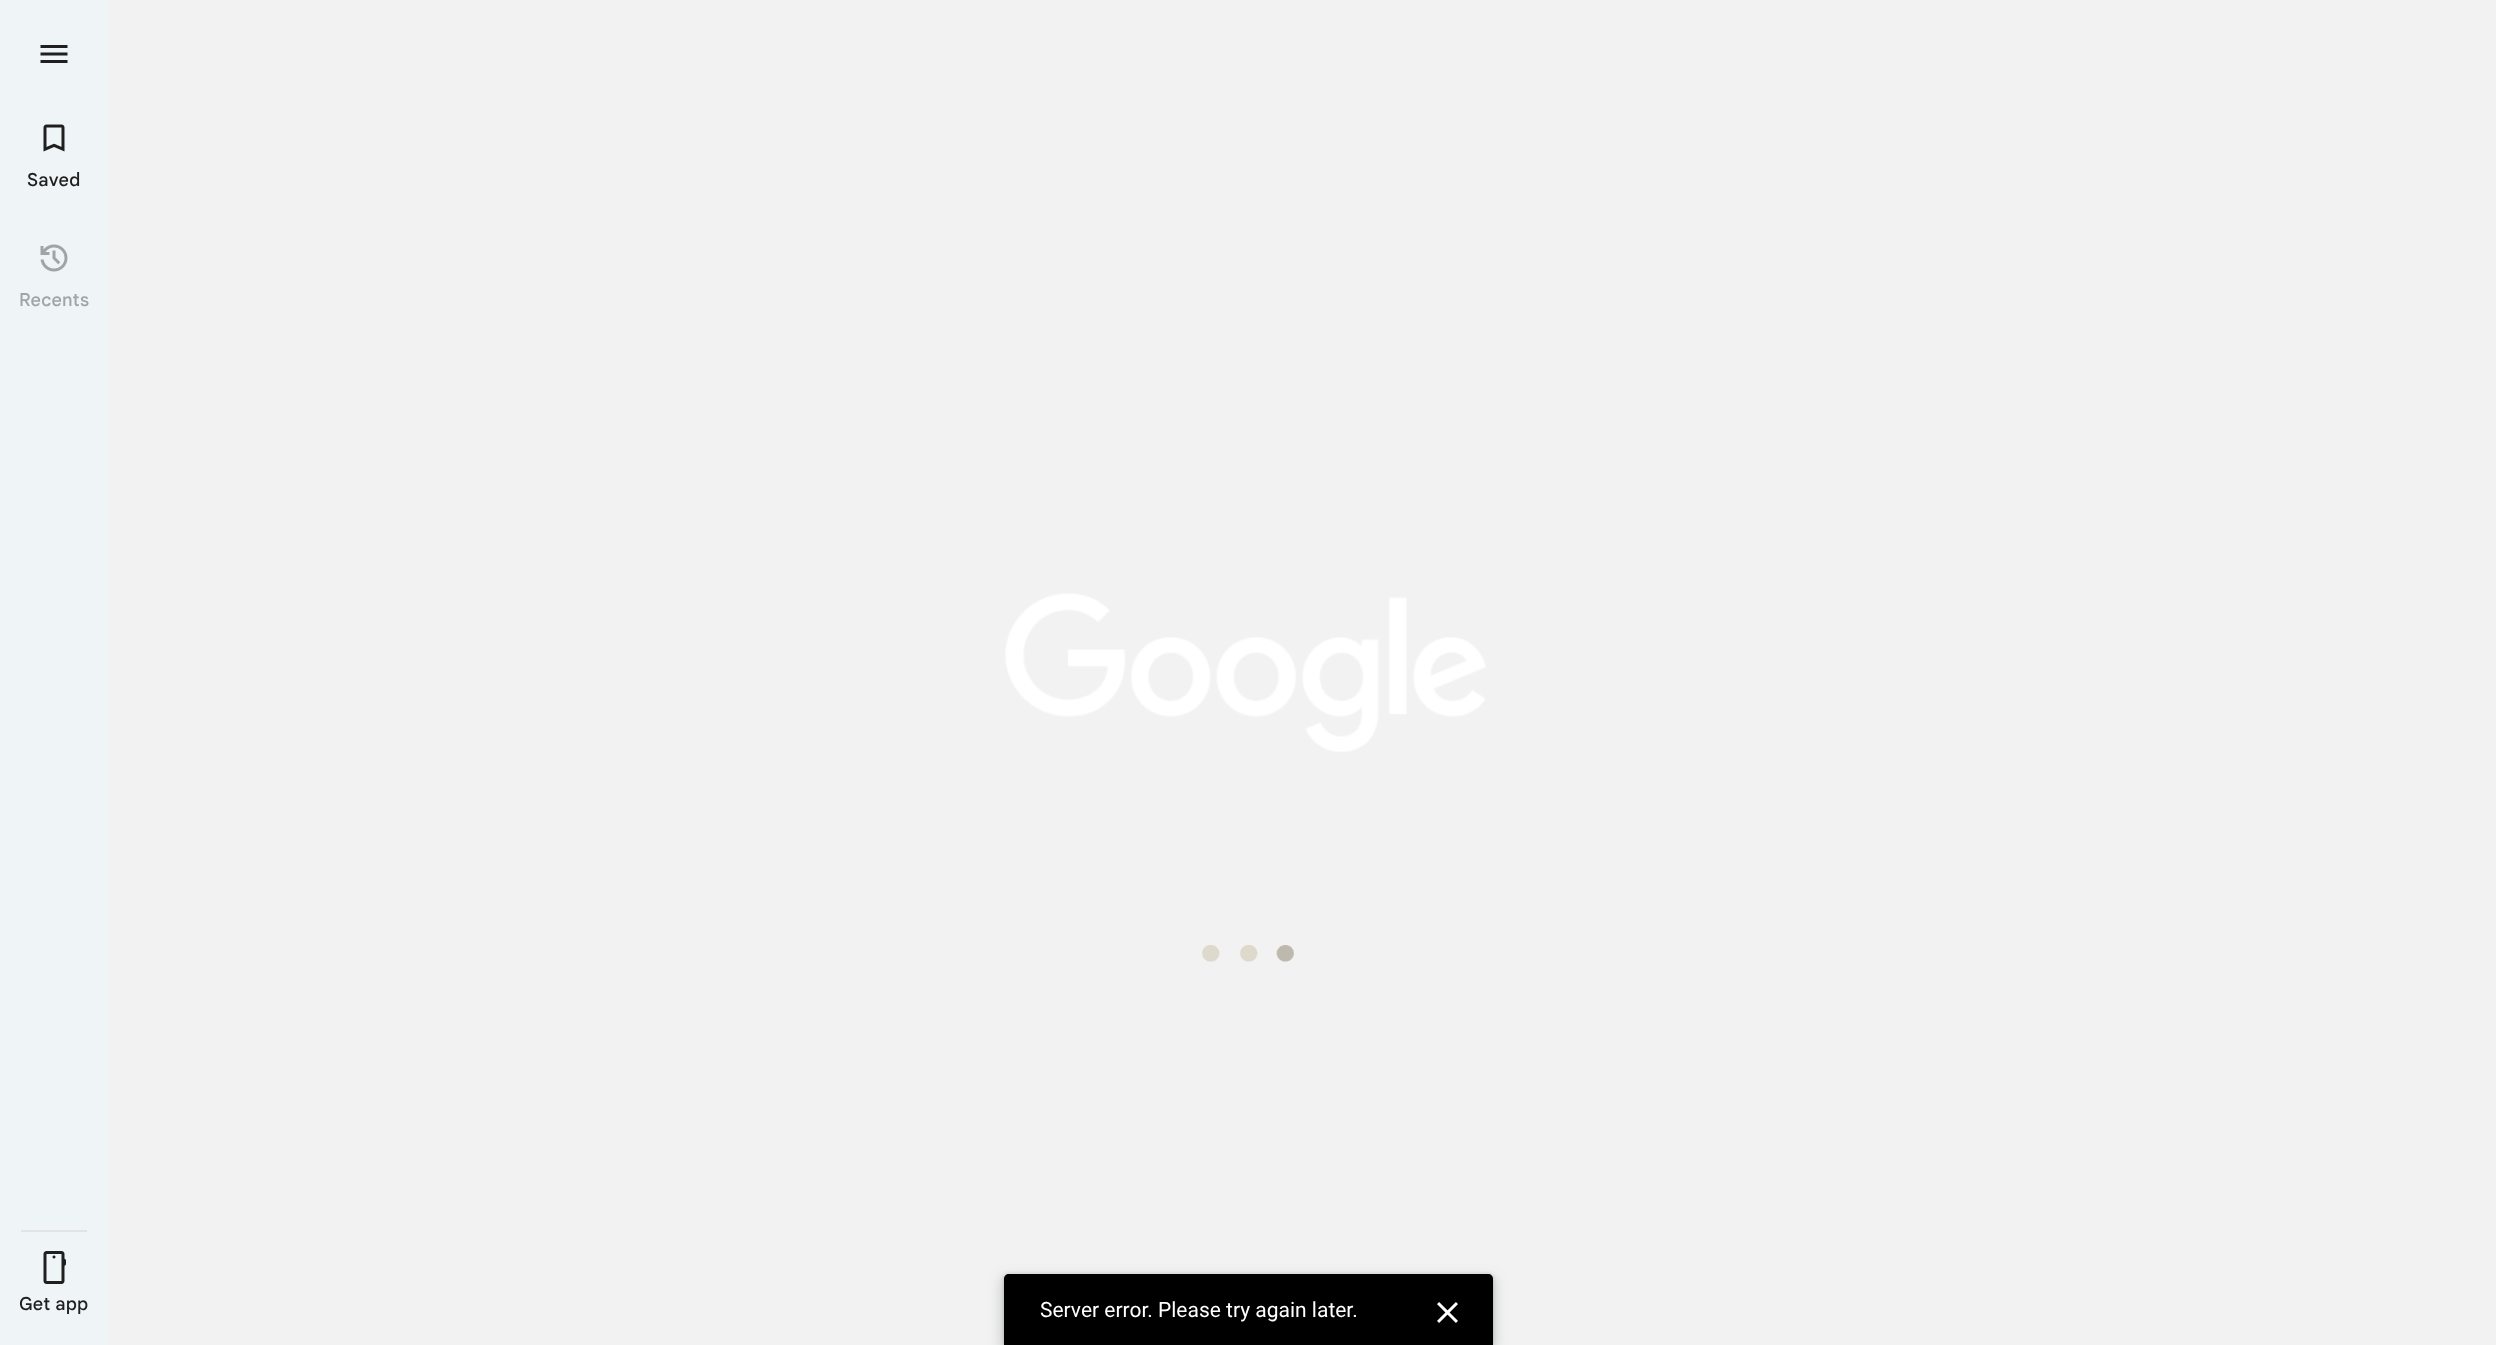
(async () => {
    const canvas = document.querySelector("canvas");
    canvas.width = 2496;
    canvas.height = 1345;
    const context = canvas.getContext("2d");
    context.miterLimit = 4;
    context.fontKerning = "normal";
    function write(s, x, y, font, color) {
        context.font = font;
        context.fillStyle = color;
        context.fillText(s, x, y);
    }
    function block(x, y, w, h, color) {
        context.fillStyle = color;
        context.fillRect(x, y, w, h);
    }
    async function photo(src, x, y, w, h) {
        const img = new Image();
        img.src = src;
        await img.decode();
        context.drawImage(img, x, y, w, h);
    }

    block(0, 0, 2496, 1345, "rgb(242, 242, 242)");
    block(0, 0, 108, 1345, "rgb(239, 245, 246)");
    await photo("media/1.png", 40, 45, 28, 18);
    await photo("media/2.png", 43, 124, 22, 28);
    context.letterSpacing = "0.25px";
    write("Saved", 27, 186, "500 18px Google Sans", "rgb(31, 31, 31)");
    await photo("media/3.png", 40, 244, 28, 28);
    write("Recents", 19, 306, "500 18px Google Sans", "rgb(160, 164, 164)");
    block(21, 1230, 66, 2, "rgb(227, 227, 227)");
    await photo("media/4.png", 43, 1251, 23, 33);
    write("Get app", 19, 1310, "500 18px Google Sans", "rgb(31, 31, 31)");
    await photo("media/5.png", 1005, 593, 481, 159);
    await photo("media/6.png", 1202, 945, 92, 17);
    context.fillStyle = "rgba(60, 64, 67, 0.15)";
    context.filter = "blur(6px)";
    context.beginPath();
    context.roundRect(999, 1275, 498, 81, 9);
    context.fill();
    context.filter = "none";
    context.fillStyle = "rgba(60, 64, 67, 0.3)";
    context.filter = "blur(2px)";
    context.beginPath();
    context.roundRect(1004, 1275, 489, 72, 5);
    context.fill();
    context.filter = "none";
    context.fillStyle = "rgb(0, 0, 0)";
    context.beginPath();
    context.moveTo(1009, 1274);
    context.lineTo(1488, 1274);
    context.bezierCurveTo(1491, 1274, 1493, 1276, 1493, 1279);
    context.lineTo(1493, 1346);
    context.lineTo(1004, 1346);
    context.lineTo(1004, 1279);
    context.bezierCurveTo(1004, 1276, 1006, 1274, 1009, 1274);
    context.closePath();
    context.fill();
    context.letterSpacing = "0px";
    write("Server error. Please try again later.", 1040, 1317, "21px Roboto", "rgb(255, 255, 255)");
    await photo("media/7.png", 1437, 1302, 21, 21);
})();
